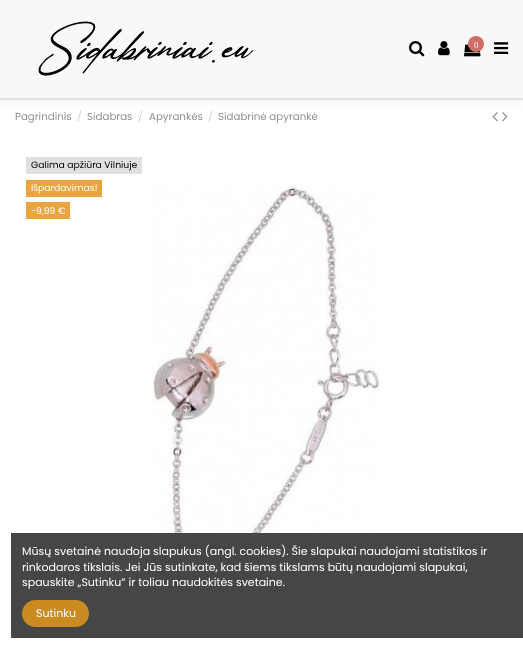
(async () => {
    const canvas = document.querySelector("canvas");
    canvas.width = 523;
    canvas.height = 649;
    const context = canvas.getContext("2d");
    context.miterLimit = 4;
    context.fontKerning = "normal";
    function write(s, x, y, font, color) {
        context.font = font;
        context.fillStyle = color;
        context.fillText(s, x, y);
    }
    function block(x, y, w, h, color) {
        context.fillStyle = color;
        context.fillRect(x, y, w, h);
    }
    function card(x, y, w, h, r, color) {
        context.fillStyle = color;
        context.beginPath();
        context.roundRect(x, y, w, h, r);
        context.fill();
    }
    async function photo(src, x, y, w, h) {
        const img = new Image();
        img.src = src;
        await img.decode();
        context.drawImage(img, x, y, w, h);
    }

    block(0, 0, 523, 649, "rgb(255, 255, 255)");
    await photo("media/6.png", 492, 112, 6, 10);
    await photo("media/7.png", 502, 112, 6, 10);
    context.fillStyle = "rgba(61, 57, 57, 0.17)";
    context.filter = "blur(5.5px)";
    context.beginPath();
    context.rect(0, -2, 523, 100);
    context.fill();
    context.filter = "none";
    block(0, 0, 523, 98, "rgb(248, 248, 248)");
    block(0, 98, 523, 2, "rgb(227, 227, 227)");
    await photo("media/1.png", 38, 21, 216, 55);
    await photo("media/2.png", 409, 41, 16, 16);
    await photo("media/3.png", 438, 41, 12, 15);
    await photo("media/4.png", 464, 40, 17, 17);
    context.fillStyle = "rgb(208, 110, 106)";
    context.beginPath();
    context.arc(476, 44, 8, 0, Math.PI * 2);
    context.fill();
    write("0", 474, 48, "9px Liberation Serif", "rgb(255, 255, 255)");
    await photo("media/5.png", 494, 42, 15, 12);
    write("Pagrindinis", 15, 120, "10.25px Poppins", "rgb(143, 143, 143)");
    write("/", 77, 120, "10.25px Poppins", "rgb(210, 210, 210)");
    write("Sidabras", 87, 120, "10.25px Poppins", "rgb(143, 143, 143)");
    write("/", 138, 120, "10.25px Poppins", "rgb(210, 210, 210)");
    write("Apyrankės", 149, 120, "10.25px Poppins", "rgb(143, 143, 143)");
    write("/", 208, 120, "10.25px Poppins", "rgb(210, 210, 210)");
    write("Sidabrinė apyrankė", 218, 120, "10.25px Poppins", "rgb(143, 143, 143)");
    block(26, 157, 116, 17, "rgb(224, 224, 224)");
    write("Galima apžiūra Vilniuje", 31, 168, "9.25px Poppins", "rgb(0, 0, 0)");
    block(26, 180, 76, 17, "rgb(235, 165, 61)");
    write("Išpardavimas!", 31, 191, "9.25px Poppins", "rgb(255, 255, 255)");
    block(26, 202, 44, 17, "rgb(235, 165, 61)");
    write("-9,99 €", 31, 214, "9.25px Poppins", "rgb(255, 255, 255)");
    await photo("media/8.png", 150, 186, 229, 347);
    block(11, 533, 512, 105, "rgb(70, 70, 70)");
    write("Mūsų svetainė naudoja slapukus (angl. cookies). Šie slapukai naudojami statistikos ir", 22, 555, "11px Poppins", "rgb(255, 255, 255)");
    write("rinkodaros tikslais. Jei Jūs sutinkate, kad šiems tikslams būtų naudojami slapukai,", 22, 571, "11px Poppins", "rgb(255, 255, 255)");
    write("spauskite „Sutinku“ ir toliau naudokitės svetaine.", 22, 586, "11px Poppins", "rgb(255, 255, 255)");
    card(22, 600, 67, 27, 13.5, "rgb(202, 139, 32)");
    write("Sutinku", 36, 617, "11px Poppins", "rgb(255, 255, 255)");
})();
